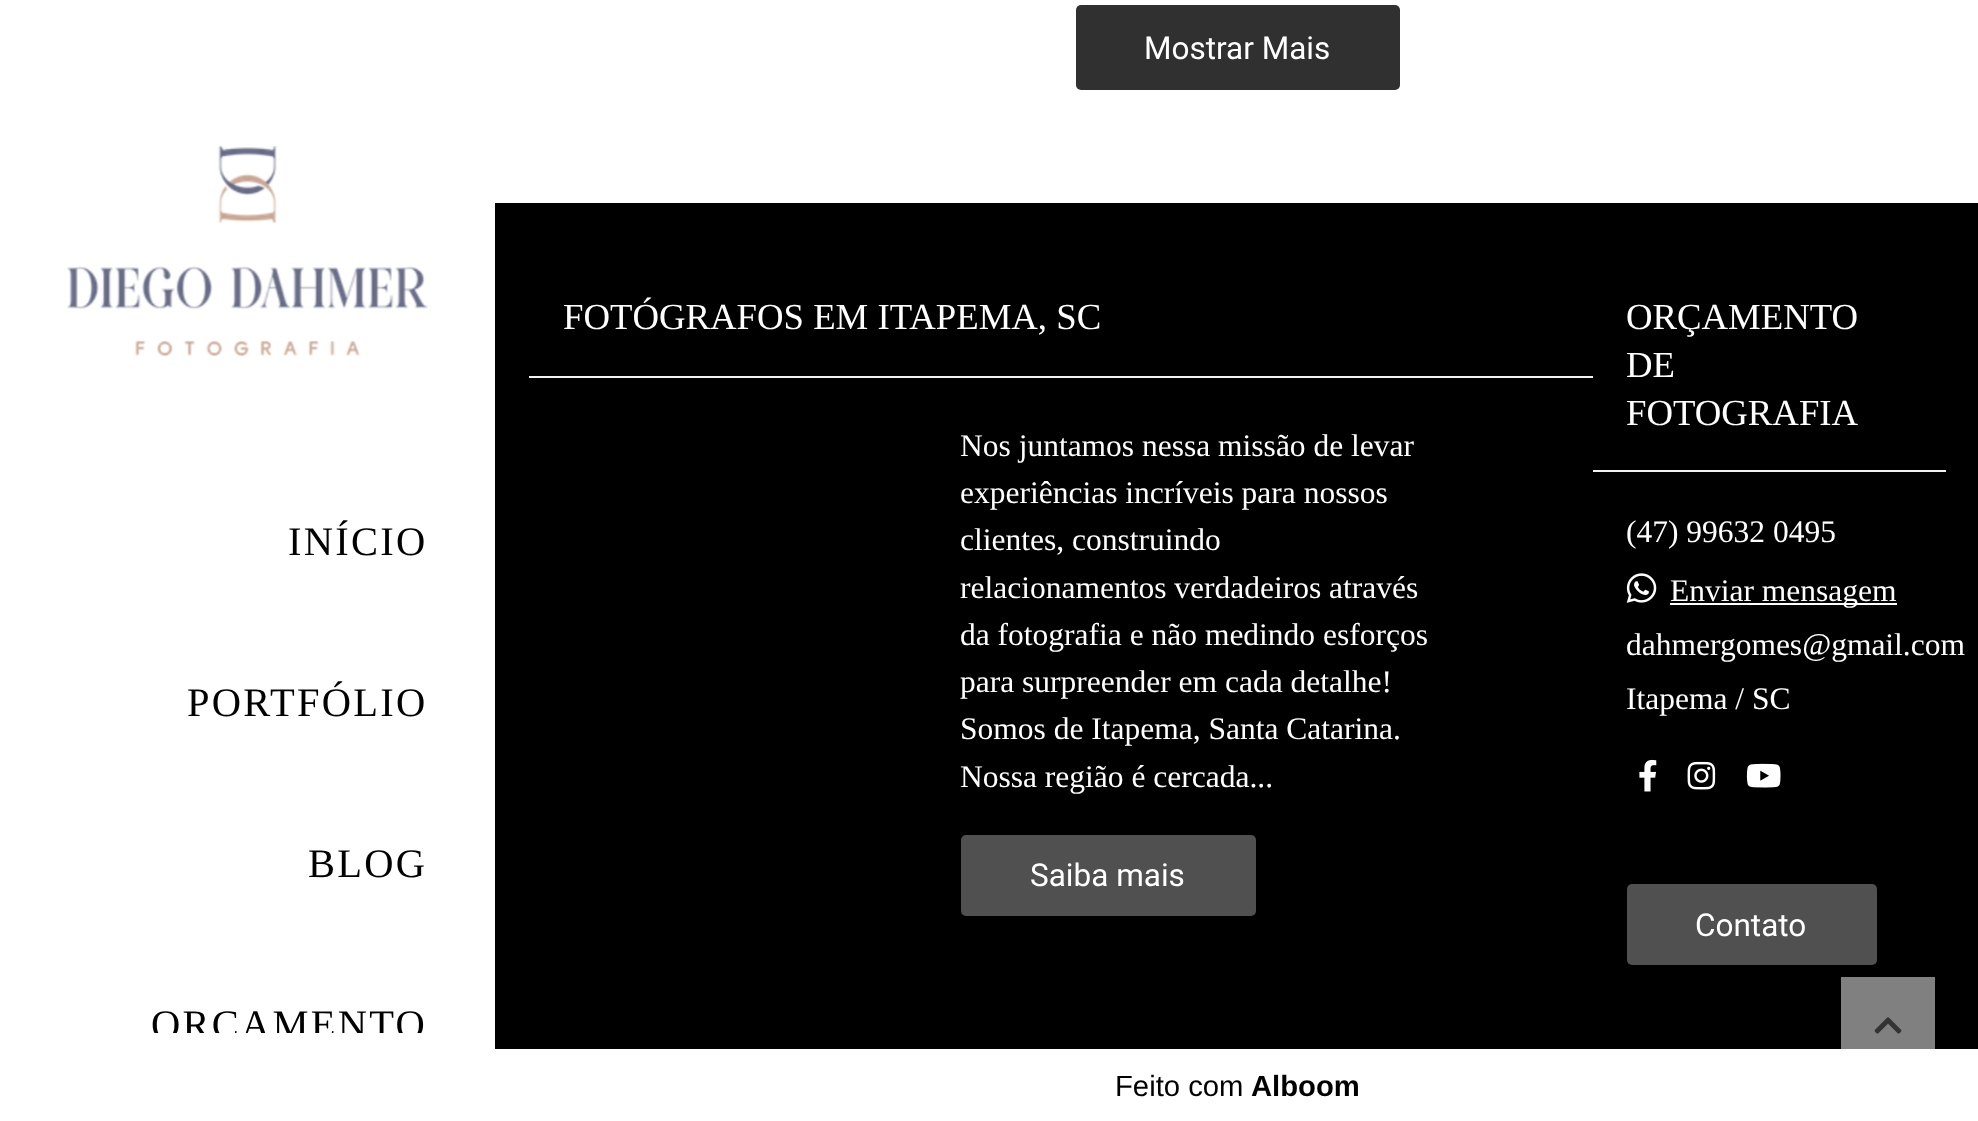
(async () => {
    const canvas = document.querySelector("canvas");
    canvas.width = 1978;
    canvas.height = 1121;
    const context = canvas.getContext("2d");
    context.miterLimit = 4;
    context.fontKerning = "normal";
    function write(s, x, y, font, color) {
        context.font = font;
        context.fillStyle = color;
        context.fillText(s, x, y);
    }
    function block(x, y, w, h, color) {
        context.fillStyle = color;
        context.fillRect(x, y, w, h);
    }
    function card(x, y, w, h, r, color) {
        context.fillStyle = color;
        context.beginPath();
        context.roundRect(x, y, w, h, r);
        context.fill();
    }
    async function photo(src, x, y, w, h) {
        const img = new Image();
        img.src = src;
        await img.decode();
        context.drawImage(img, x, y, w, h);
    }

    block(0, 0, 1978, 1121, "rgb(255, 255, 255)");
    card(1076, 5, 324, 85, 5, "rgb(48, 48, 48)");
    write("Mostrar Mais", 1144, 59, "31.5px Roboto", "rgb(255, 255, 255)");
    await photo("media/1.png", 67, 146, 361, 211);
    context.letterSpacing = "2.25px";
    write("INÍCIO", 288, 555, "40.5px Liberation Serif", "rgb(0, 0, 0)");
    write("PORTFÓLIO", 187, 716, "40.5px Liberation Serif", "rgb(0, 0, 0)");
    write("BLOG", 308, 877, "40.5px Liberation Serif", "rgb(0, 0, 0)");
    context.save();
    context.beginPath();
    context.rect(68, 968, 360, 65);
    context.clip();
    write("ORÇAMENTO", 151, 1038, "40.5px Liberation Serif", "rgb(0, 0, 0)");
    context.restore();
    block(495, 203, 1483, 846, "rgb(0, 0, 0)");
    block(1841, 977, 94, 72, "rgb(128, 128, 128)");
    context.letterSpacing = "0px";
    write("FOTÓGRAFOS EM ITAPEMA, SC", 563, 329, "36.75px Liberation Serif", "rgb(255, 255, 255)");
    block(529, 376, 1064, 2, "rgb(242, 242, 242)");
    write("Nos juntamos nessa missão de levar", 960, 456, "31.5px Liberation Serif", "rgb(255, 255, 255)");
    write("experiências incríveis para nossos", 960, 503, "31.5px Liberation Serif", "rgb(255, 255, 255)");
    write("clientes, construindo", 960, 550, "31.5px Liberation Serif", "rgb(255, 255, 255)");
    write("relacionamentos verdadeiros através", 960, 598, "31.5px Liberation Serif", "rgb(255, 255, 255)");
    write("da fotografia e não medindo esforços", 960, 645, "31.5px Liberation Serif", "rgb(255, 255, 255)");
    write("para surpreender em cada detalhe!", 960, 692, "31.5px Liberation Serif", "rgb(255, 255, 255)");
    write("Somos de Itapema, Santa Catarina.", 960, 739, "31.5px Liberation Serif", "rgb(255, 255, 255)");
    write("Nossa região é cercada...", 960, 787, "31.5px Liberation Serif", "rgb(255, 255, 255)");
    card(961, 835, 295, 81, 5, "rgb(80, 80, 80)");
    write("Saiba mais", 1030, 886, "31.5px Roboto", "rgb(255, 255, 255)");
    write("ORÇAMENTO", 1626, 329, "36.75px Liberation Serif", "rgb(255, 255, 255)");
    write("DE", 1626, 377, "36.75px Liberation Serif", "rgb(255, 255, 255)");
    write("FOTOGRAFIA", 1626, 425, "36.75px Liberation Serif", "rgb(255, 255, 255)");
    block(1593, 470, 353, 2, "rgb(242, 242, 242)");
    write("(47) 99632 0495", 1626, 542, "31.5px Liberation Serif", "rgb(255, 255, 255)");
    await photo("media/2.png", 1626, 573, 31, 30);
    block(1670, 603, 227, 2, "rgb(255, 255, 255)");
    write("Enviar mensagem", 1670, 601, "31.5px Liberation Serif", "rgb(255, 255, 255)");
    write("dahmergomes@gmail.com", 1626, 655, "31.5px Liberation Serif", "rgb(255, 255, 255)");
    write("Itapema / SC", 1626, 709, "31.5px Liberation Serif", "rgb(255, 255, 255)");
    await photo("media/3.png", 1639, 759, 18, 33);
    await photo("media/4.png", 1687, 761, 29, 29);
    await photo("media/5.png", 1746, 763, 35, 25);
    card(1627, 884, 250, 81, 5, "rgb(80, 80, 80)");
    write("Contato", 1695, 936, "31.5px Roboto", "rgb(255, 255, 255)");
    await photo("media/6.png", 1874, 1017, 28, 17);
    write("Feito com", 1115, 1096, "29.25px Liberation Sans", "rgb(0, 0, 0)");
    write("Alboom", 1251, 1096, "bold 29.25px Liberation Sans", "rgb(0, 0, 0)");
})();
